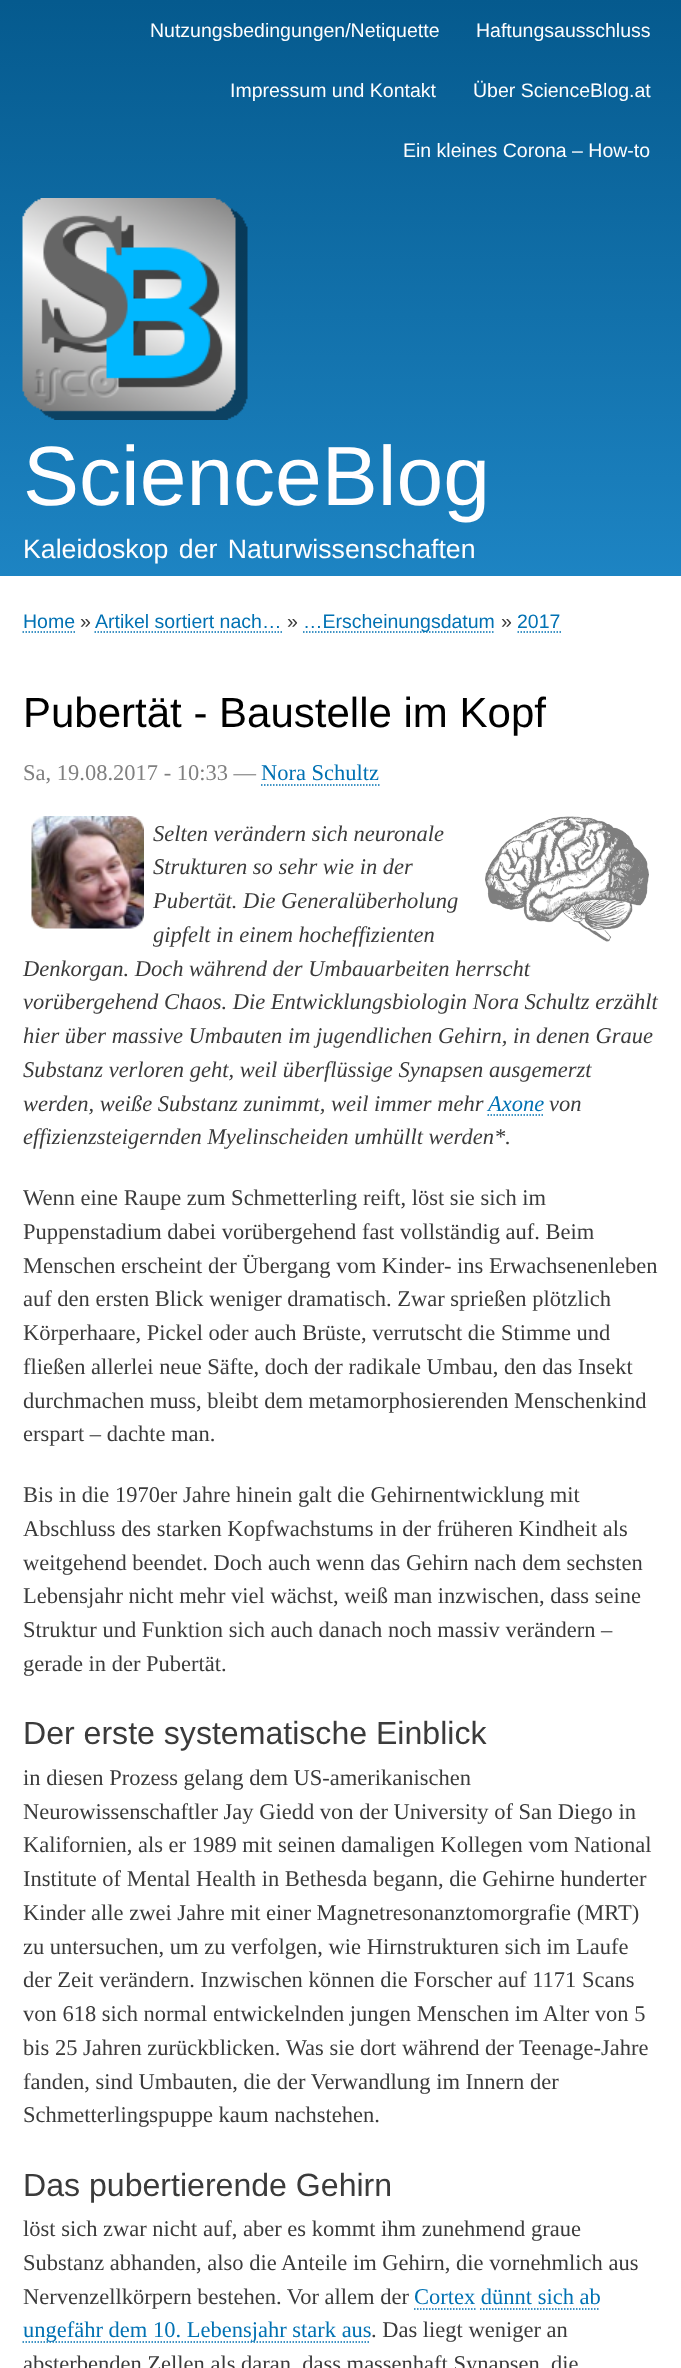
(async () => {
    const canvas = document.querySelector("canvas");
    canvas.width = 681;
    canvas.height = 2368;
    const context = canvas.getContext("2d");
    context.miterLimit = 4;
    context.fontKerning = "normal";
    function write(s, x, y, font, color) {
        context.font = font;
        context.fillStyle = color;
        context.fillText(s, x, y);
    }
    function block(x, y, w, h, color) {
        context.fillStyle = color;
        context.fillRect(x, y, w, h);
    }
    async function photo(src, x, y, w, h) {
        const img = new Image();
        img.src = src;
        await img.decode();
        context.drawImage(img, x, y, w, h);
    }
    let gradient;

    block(0, 0, 681, 2368, "rgb(255, 255, 255)");
    gradient = context.createLinearGradient(340, 0, 341, 576);
    gradient.addColorStop(0, "rgb(5, 90, 142)");
    gradient.addColorStop(1, "rgb(29, 132, 195)");
    context.fillStyle = gradient;
    context.fillRect(0, 0, 681, 576);
    write("Nutzungsbedingungen/Netiquette", 150, 37, "19.5px Liberation Sans", "rgb(255, 254, 255)");
    write("Haftungsausschluss", 476, 37, "19.5px Liberation Sans", "rgb(255, 254, 255)");
    write("Impressum und Kontakt", 230, 97, "19.5px Liberation Sans", "rgb(255, 254, 255)");
    write("Über ScienceBlog.at", 473, 97, "19.5px Liberation Sans", "rgb(255, 254, 255)");
    write("Ein kleines Corona – How-to", 403, 157, "19.5px Liberation Sans", "rgb(255, 254, 255)");
    await photo("media/1.png", 22, 198, 226, 222);
    write("ScienceBlog", 23, 505, "84px Liberation Sans", "rgb(255, 254, 255)");
    context.wordSpacing = "3px";
    write("Kaleidoskop der Naturwissenschaften", 23, 558, "26.7px Liberation Sans", "rgb(255, 254, 255)");
    context.wordSpacing = "0px";
    write("Home", 23, 628, "19.5px Liberation Sans", "rgb(0, 113, 179)");
    context.beginPath();
    context.moveTo(22.5, 632);
    context.lineTo(75, 632);
    context.strokeStyle = "rgb(0, 113, 179)";
    context.lineWidth = 1.5;
    context.setLineDash([1.5, 1.5]);
    context.stroke();
    write("»", 80, 628, "19.5px Liberation Sans", "rgb(59, 59, 59)");
    context.beginPath();
    context.moveTo(94.5, 632);
    context.lineTo(282, 632);
    context.stroke();
    write("Artikel sortiert nach…", 95, 628, "19.5px Liberation Sans", "rgb(0, 113, 179)");
    write("»", 287, 628, "19.5px Liberation Sans", "rgb(59, 59, 59)");
    context.beginPath();
    context.moveTo(303, 632);
    context.lineTo(495, 632);
    context.stroke();
    write("…Erscheinungsdatum", 303, 628, "19.5px Liberation Sans", "rgb(0, 113, 179)");
    write("»", 501, 628, "19.5px Liberation Sans", "rgb(59, 59, 59)");
    write("2017", 517, 628, "19.5px Liberation Sans", "rgb(0, 113, 179)");
    context.beginPath();
    context.moveTo(517.5, 632);
    context.lineTo(561, 632);
    context.stroke();
    write("Pubertät - Baustelle im Kopf", 23, 727, "42px Liberation Sans", "rgb(0, 0, 0)");
    write("Sa, 19.08.2017 - 10:33 —", 23, 780, "22.5px Liberation Serif", "rgb(128, 128, 128)");
    write("Nora Schultz", 261, 780, "22.5px Liberation Serif", "rgb(0, 113, 179)");
    context.beginPath();
    context.moveTo(261, 785);
    context.lineTo(379.5, 785);
    context.stroke();
    await photo("media/2.png", 31, 816, 113, 113);
    await photo("media/3.png", 485, 816, 164, 126);
    write("Selten verändern sich neuronale", 153, 841, "italic 22.5px Liberation Serif", "rgb(59, 59, 59)");
    write("Strukturen so sehr wie in der", 153, 874, "italic 22.5px Liberation Serif", "rgb(59, 59, 59)");
    write("Pubertät. Die Generalüberholung", 153, 908, "italic 22.5px Liberation Serif", "rgb(59, 59, 59)");
    write("gipfelt in einem hocheffizienten", 153, 942, "italic 22.5px Liberation Serif", "rgb(59, 59, 59)");
    write("Denkorgan. Doch während der Umbauarbeiten herrscht", 23, 976, "italic 22.5px Liberation Serif", "rgb(59, 59, 59)");
    write("vorübergehend Chaos. Die Entwicklungsbiologin Nora Schultz erzählt", 23, 1009, "italic 22.5px Liberation Serif", "rgb(59, 59, 59)");
    write("hier über massive Umbauten im jugendlichen Gehirn, in denen Graue", 23, 1043, "italic 22.5px Liberation Serif", "rgb(59, 59, 59)");
    write("Substanz verloren geht, weil überflüssige Synapsen ausgemerzt", 23, 1077, "italic 22.5px Liberation Serif", "rgb(59, 59, 59)");
    write("werden, weiße Substanz zunimmt, weil immer mehr", 23, 1111, "italic 22.5px Liberation Serif", "rgb(59, 59, 59)");
    write("Axone", 488, 1111, "italic 22.5px Liberation Serif", "rgb(0, 113, 179)");
    context.beginPath();
    context.moveTo(487.5, 1115);
    context.lineTo(544.5, 1115);
    context.stroke();
    write("von", 549, 1111, "italic 22.5px Liberation Serif", "rgb(59, 59, 59)");
    write("effizienzsteigernden Myelinscheiden umhüllt werden*.", 23, 1144, "italic 22.5px Liberation Serif", "rgb(59, 59, 59)");
    write("Wenn eine Raupe zum Schmetterling reift, löst sie sich im", 23, 1205, "22.5px Liberation Serif", "rgb(59, 59, 59)");
    write("Puppenstadium dabei vorübergehend fast vollständig auf. Beim", 23, 1239, "22.5px Liberation Serif", "rgb(59, 59, 59)");
    write("Menschen erscheint der Übergang vom Kinder- ins Erwachsenenleben", 23, 1273, "22.5px Liberation Serif", "rgb(59, 59, 59)");
    write("auf den ersten Blick weniger dramatisch. Zwar sprießen plötzlich", 23, 1306, "22.5px Liberation Serif", "rgb(59, 59, 59)");
    write("Körperhaare, Pickel oder auch Brüste, verrutscht die Stimme und", 23, 1340, "22.5px Liberation Serif", "rgb(59, 59, 59)");
    write("fließen allerlei neue Säfte, doch der radikale Umbau, den das Insekt", 23, 1374, "22.5px Liberation Serif", "rgb(59, 59, 59)");
    write("durchmachen muss, bleibt dem metamorphosierenden Menschenkind", 23, 1408, "22.5px Liberation Serif", "rgb(59, 59, 59)");
    write("erspart – dachte man.", 23, 1441, "22.5px Liberation Serif", "rgb(59, 59, 59)");
    write("Bis in die 1970er Jahre hinein galt die Gehirnentwicklung mit", 23, 1502, "22.5px Liberation Serif", "rgb(59, 59, 59)");
    write("Abschluss des starken Kopfwachstums in der früheren Kindheit als", 23, 1536, "22.5px Liberation Serif", "rgb(59, 59, 59)");
    write("weitgehend beendet. Doch auch wenn das Gehirn nach dem sechsten", 23, 1570, "22.5px Liberation Serif", "rgb(59, 59, 59)");
    write("Lebensjahr nicht mehr viel wächst, weiß man inzwischen, dass seine", 23, 1603, "22.5px Liberation Serif", "rgb(59, 59, 59)");
    write("Struktur und Funktion sich auch danach noch massiv verändern –", 23, 1637, "22.5px Liberation Serif", "rgb(59, 59, 59)");
    write("gerade in der Pubertät.", 23, 1671, "22.5px Liberation Serif", "rgb(59, 59, 59)");
    write("Der erste systematische Einblick", 23, 1744, "32.1px Liberation Sans", "rgb(59, 59, 59)");
    write("in diesen Prozess gelang dem US-amerikanischen", 23, 1785, "22.5px Liberation Serif", "rgb(59, 59, 59)");
    write("Neurowissenschaftler Jay Giedd von der University of San Diego in", 23, 1819, "22.5px Liberation Serif", "rgb(59, 59, 59)");
    write("Kalifornien, als er 1989 mit seinen damaligen Kollegen vom National", 23, 1852, "22.5px Liberation Serif", "rgb(59, 59, 59)");
    write("Institute of Mental Health in Bethesda begann, die Gehirne hunderter", 23, 1886, "22.5px Liberation Serif", "rgb(59, 59, 59)");
    write("Kinder alle zwei Jahre mit einer Magnetresonanztomorgrafie (MRT)", 23, 1920, "22.5px Liberation Serif", "rgb(59, 59, 59)");
    write("zu untersuchen, um zu verfolgen, wie Hirnstrukturen sich im Laufe", 23, 1954, "22.5px Liberation Serif", "rgb(59, 59, 59)");
    write("der Zeit verändern. Inzwischen können die Forscher auf 1171 Scans", 23, 1987, "22.5px Liberation Serif", "rgb(59, 59, 59)");
    write("von 618 sich normal entwickelnden jungen Menschen im Alter von 5", 23, 2021, "22.5px Liberation Serif", "rgb(59, 59, 59)");
    write("bis 25 Jahren zurückblicken. Was sie dort während der Teenage-Jahre", 23, 2055, "22.5px Liberation Serif", "rgb(59, 59, 59)");
    write("fanden, sind Umbauten, die der Verwandlung im Innern der", 23, 2089, "22.5px Liberation Serif", "rgb(59, 59, 59)");
    write("Schmetterlingspuppe kaum nachstehen.", 23, 2122, "22.5px Liberation Serif", "rgb(59, 59, 59)");
    write("Das pubertierende Gehirn", 23, 2196, "32.1px Liberation Sans", "rgb(59, 59, 59)");
    write("löst sich zwar nicht auf, aber es kommt ihm zunehmend graue", 23, 2236, "22.5px Liberation Serif", "rgb(59, 59, 59)");
    write("Substanz abhanden, also die Anteile im Gehirn, die vornehmlich aus", 23, 2270, "22.5px Liberation Serif", "rgb(59, 59, 59)");
    write("Nervenzellkörpern bestehen. Vor allem der", 23, 2304, "22.5px Liberation Serif", "rgb(59, 59, 59)");
    write("Cortex dünnt sich ab", 414, 2304, "22.5px Liberation Serif", "rgb(0, 113, 179)");
    context.beginPath();
    context.moveTo(414, 2309);
    context.lineTo(475.5, 2309);
    context.stroke();
    context.beginPath();
    context.moveTo(22.5, 2342);
    context.lineTo(370.5, 2342);
    context.stroke();
    write("ungefähr dem 10. Lebensjahr stark aus", 23, 2337, "22.5px Liberation Serif", "rgb(0, 113, 179)");
    context.beginPath();
    context.moveTo(480, 2309);
    context.lineTo(600, 2309);
    context.stroke();
    write(". Das liegt weniger an", 371, 2337, "22.5px Liberation Serif", "rgb(59, 59, 59)");
    write("absterbenden Zellen als daran, dass massenhaft Synapsen, die", 23, 2371, "22.5px Liberation Serif", "rgb(59, 59, 59)");
})();
